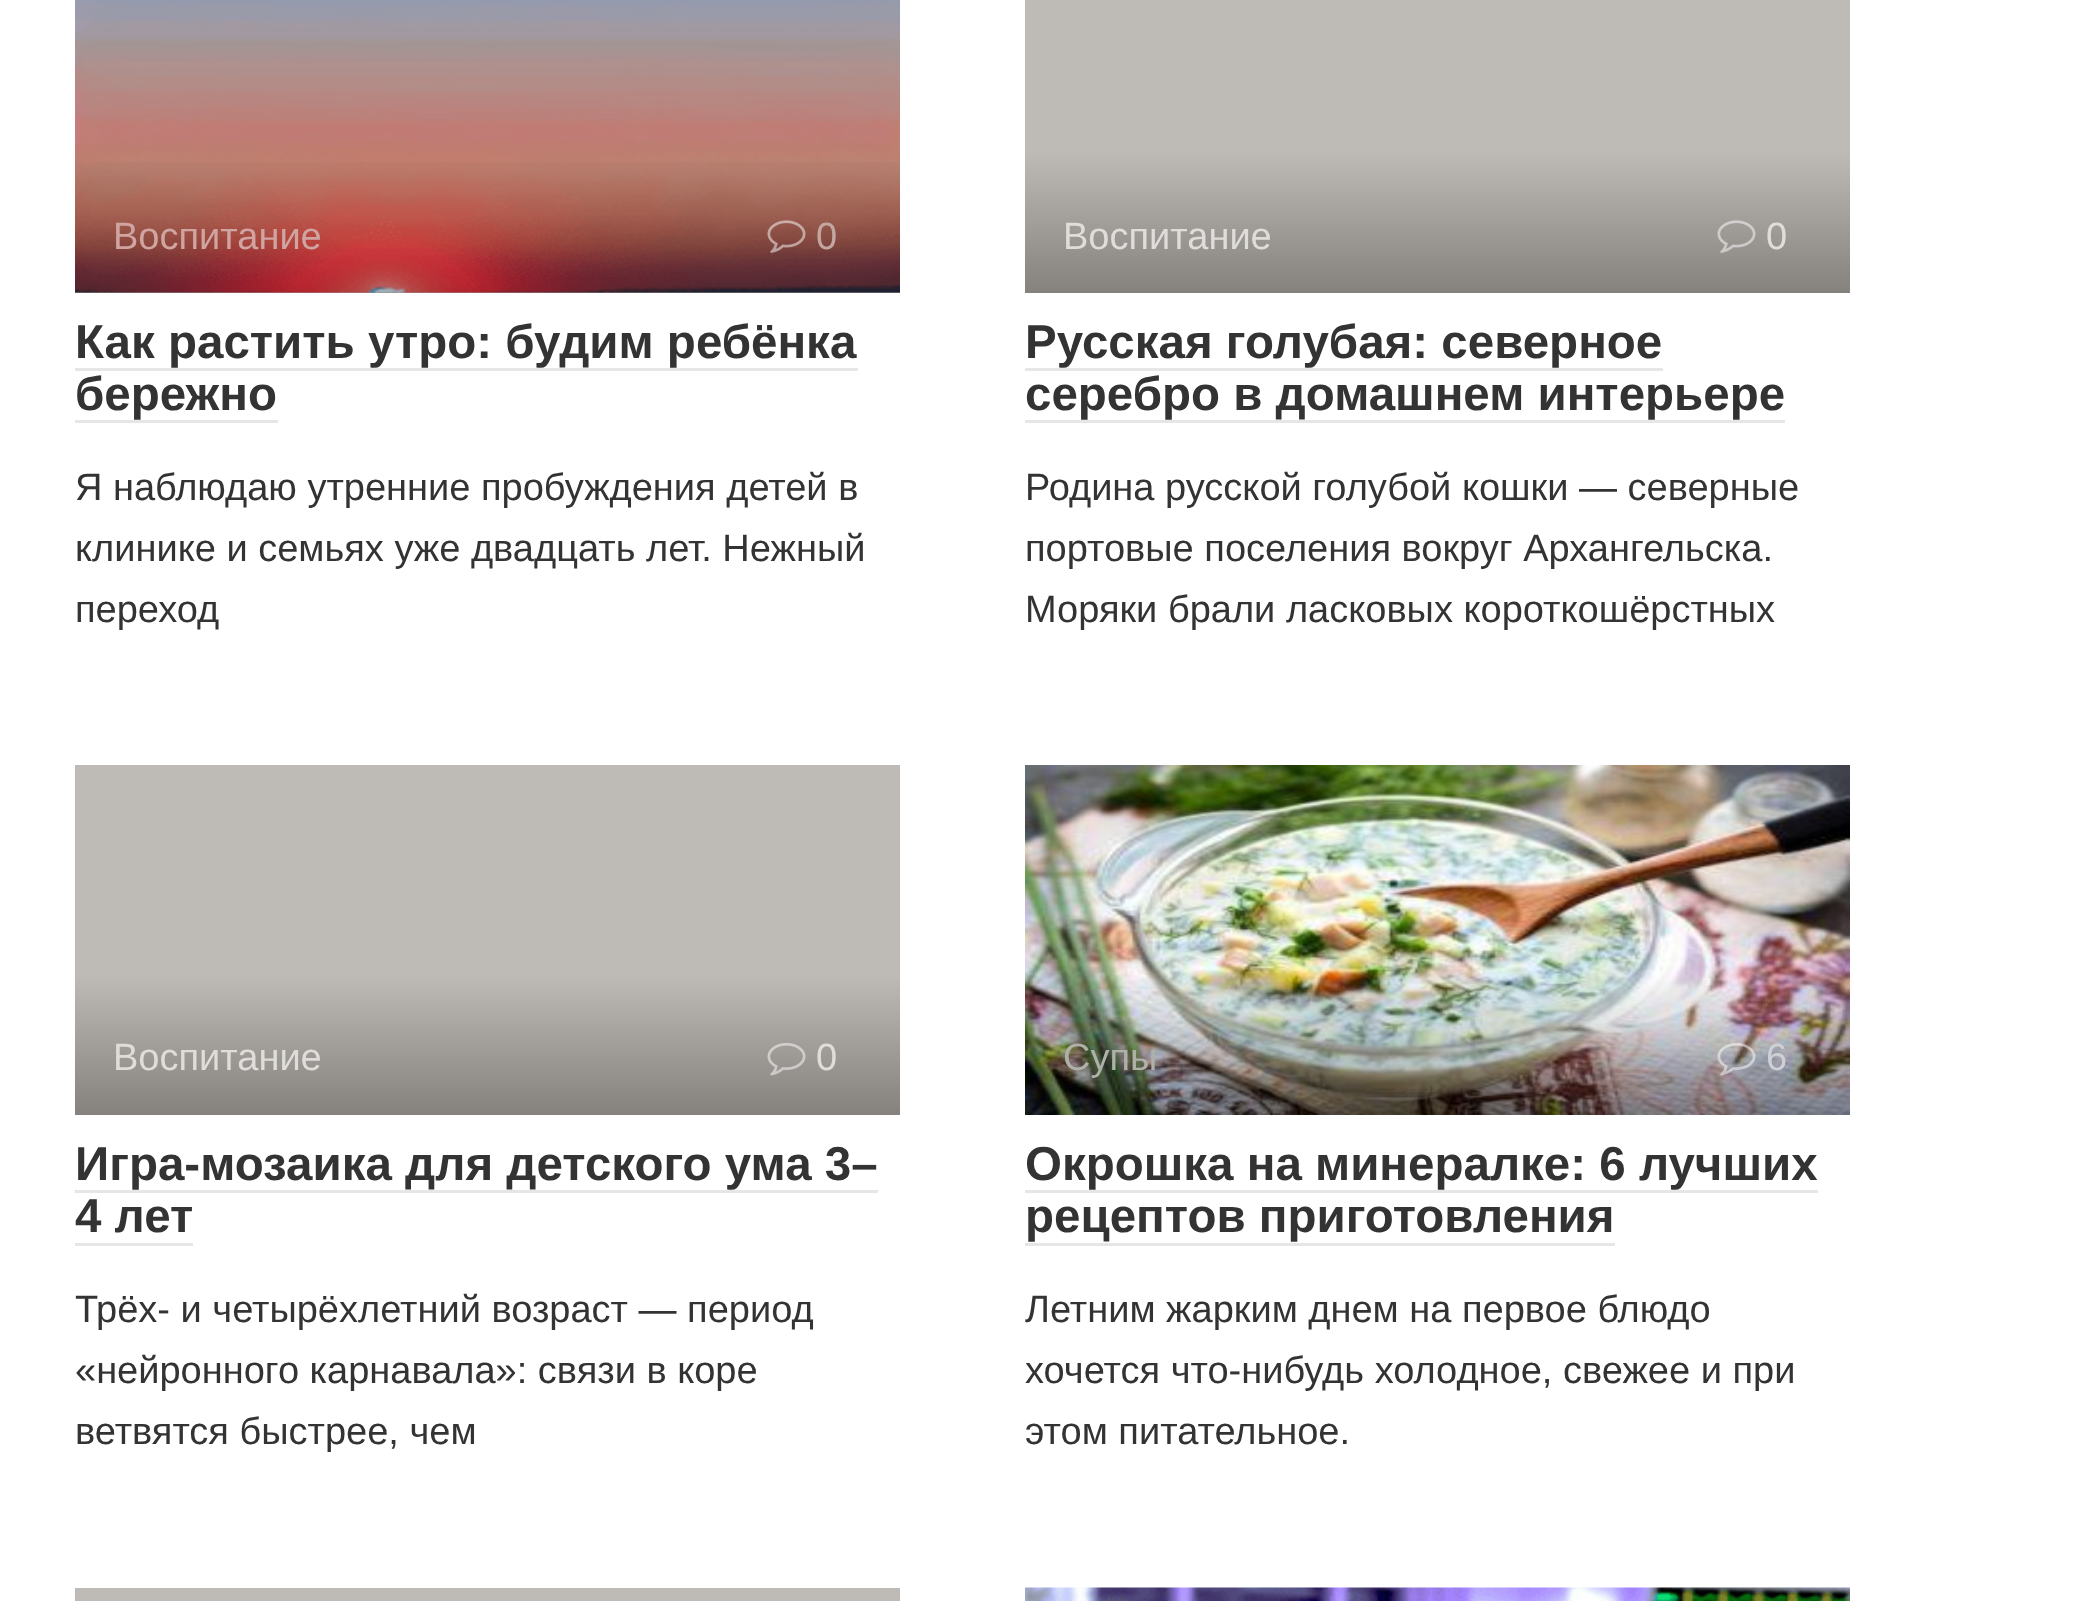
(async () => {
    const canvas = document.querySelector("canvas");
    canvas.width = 2096;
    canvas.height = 1601;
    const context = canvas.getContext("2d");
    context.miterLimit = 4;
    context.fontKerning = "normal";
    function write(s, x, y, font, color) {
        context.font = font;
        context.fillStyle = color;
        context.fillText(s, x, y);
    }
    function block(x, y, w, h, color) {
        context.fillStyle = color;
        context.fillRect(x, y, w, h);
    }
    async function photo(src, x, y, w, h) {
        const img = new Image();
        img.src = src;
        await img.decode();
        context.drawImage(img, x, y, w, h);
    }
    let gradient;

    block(0, 0, 2096, 1601, "rgb(255, 255, 255)");
    block(75, 292, 825, 1, "rgb(208, 203, 203)");
    await photo("media/1.png", 75, 0, 825, 293);
    gradient = context.createLinearGradient(488, 152, 488, 293);
    gradient.addColorStop(0, "rgba(0, 0, 0, 0)");
    gradient.addColorStop(1, "rgba(0, 0, 0, 0.3)");
    context.fillStyle = gradient;
    context.fillRect(75, 162, 825, 131);
    write("Воспитание", 113, 249, "38px Liberation Sans", "rgb(208, 164, 160)");
    await photo("media/2.png", 767, 220, 39, 33);
    write("0", 816, 249, "38px Liberation Sans", "rgb(196, 166, 161)");
    write("Как растить утро: будим ребёнка", 75, 358, "bold 47.5px Liberation Sans", "rgb(51, 51, 51)");
    block(75, 368, 783, 3, "rgb(230, 230, 230)");
    write("бережно", 75, 410, "bold 47.5px Liberation Sans", "rgb(51, 51, 51)");
    block(75, 420, 203, 3, "rgb(230, 230, 230)");
    write("Я наблюдаю утренние пробуждения детей в", 75, 500, "38px Liberation Sans", "rgb(51, 51, 51)");
    write("клинике и семьях уже двадцать лет. Нежный", 75, 561, "38px Liberation Sans", "rgb(51, 51, 51)");
    write("переход", 75, 622, "38px Liberation Sans", "rgb(51, 51, 51)");
    block(1025, 0, 825, 153, "rgb(190, 186, 181)");
    gradient = context.createLinearGradient(1438, 152, 1438, 293);
    gradient.addColorStop(0, "rgb(190, 186, 181)");
    gradient.addColorStop(1, "rgb(133, 130, 126)");
    context.fillStyle = gradient;
    context.fillRect(1025, 153, 825, 140);
    write("Воспитание", 1063, 249, "38px Liberation Sans", "rgb(223, 221, 218)");
    await photo("media/3.png", 1717, 220, 39, 33);
    write("0", 1766, 249, "38px Liberation Sans", "rgb(223, 221, 218)");
    write("Русская голубая: северное", 1025, 358, "bold 47.5px Liberation Sans", "rgb(51, 51, 51)");
    block(1025, 368, 638, 3, "rgb(230, 230, 230)");
    write("серебро в домашнем интерьере", 1025, 410, "bold 47.5px Liberation Sans", "rgb(51, 51, 51)");
    block(1025, 420, 760, 3, "rgb(230, 230, 230)");
    write("Родина русской голубой кошки — северные", 1025, 500, "38px Liberation Sans", "rgb(51, 51, 51)");
    write("портовые поселения вокруг Архангельска.", 1025, 561, "38px Liberation Sans", "rgb(51, 51, 51)");
    write("Моряки брали ласковых короткошёрстных", 1025, 622, "38px Liberation Sans", "rgb(51, 51, 51)");
    block(75, 765, 825, 210, "rgb(190, 186, 181)");
    gradient = context.createLinearGradient(488, 975, 488, 1115);
    gradient.addColorStop(0, "rgb(190, 186, 181)");
    gradient.addColorStop(1, "rgb(133, 130, 126)");
    context.fillStyle = gradient;
    context.fillRect(75, 975, 825, 140);
    write("Воспитание", 113, 1070, "38px Liberation Sans", "rgb(223, 221, 218)");
    await photo("media/4.png", 767, 1042, 39, 34);
    write("0", 816, 1070, "38px Liberation Sans", "rgb(223, 221, 218)");
    write("Игра-мозаика для детского ума 3–", 75, 1180, "bold 47.5px Liberation Sans", "rgb(51, 51, 51)");
    block(75, 1190, 803, 3, "rgb(230, 230, 230)");
    write("4 лет", 75, 1232, "bold 47.5px Liberation Sans", "rgb(51, 51, 51)");
    block(75, 1243, 118, 3, "rgb(230, 230, 230)");
    write("Трёх- и четырёхлетний возраст — период", 75, 1322, "38px Liberation Sans", "rgb(51, 51, 51)");
    write("«нейронного карнавала»: связи в коре", 75, 1383, "38px Liberation Sans", "rgb(51, 51, 51)");
    write("ветвятся быстрее, чем", 75, 1444, "38px Liberation Sans", "rgb(51, 51, 51)");
    await photo("media/5.png", 1025, 765, 825, 350);
    write("Супы", 1063, 1070, "38px Liberation Sans", "rgb(175, 177, 168)");
    await photo("media/6.png", 1717, 1042, 39, 34);
    write("6", 1766, 1070, "38px Liberation Sans", "rgb(206, 208, 213)");
    write("Окрошка на минералке: 6 лучших", 1025, 1180, "bold 47.5px Liberation Sans", "rgb(51, 51, 51)");
    block(1025, 1190, 793, 3, "rgb(230, 230, 230)");
    write("рецептов приготовления", 1025, 1232, "bold 47.5px Liberation Sans", "rgb(51, 51, 51)");
    block(1025, 1243, 590, 3, "rgb(230, 230, 230)");
    write("Летним жарким днем на первое блюдо", 1025, 1322, "38px Liberation Sans", "rgb(51, 51, 51)");
    write("хочется что-нибудь холодное, свежее и при", 1025, 1383, "38px Liberation Sans", "rgb(51, 51, 51)");
    write("этом питательное.", 1025, 1444, "38px Liberation Sans", "rgb(51, 51, 51)");
    block(75, 1588, 825, 13, "rgb(190, 186, 181)");
    await photo("media/7.png", 1025, 1587, 825, 14);
})();
